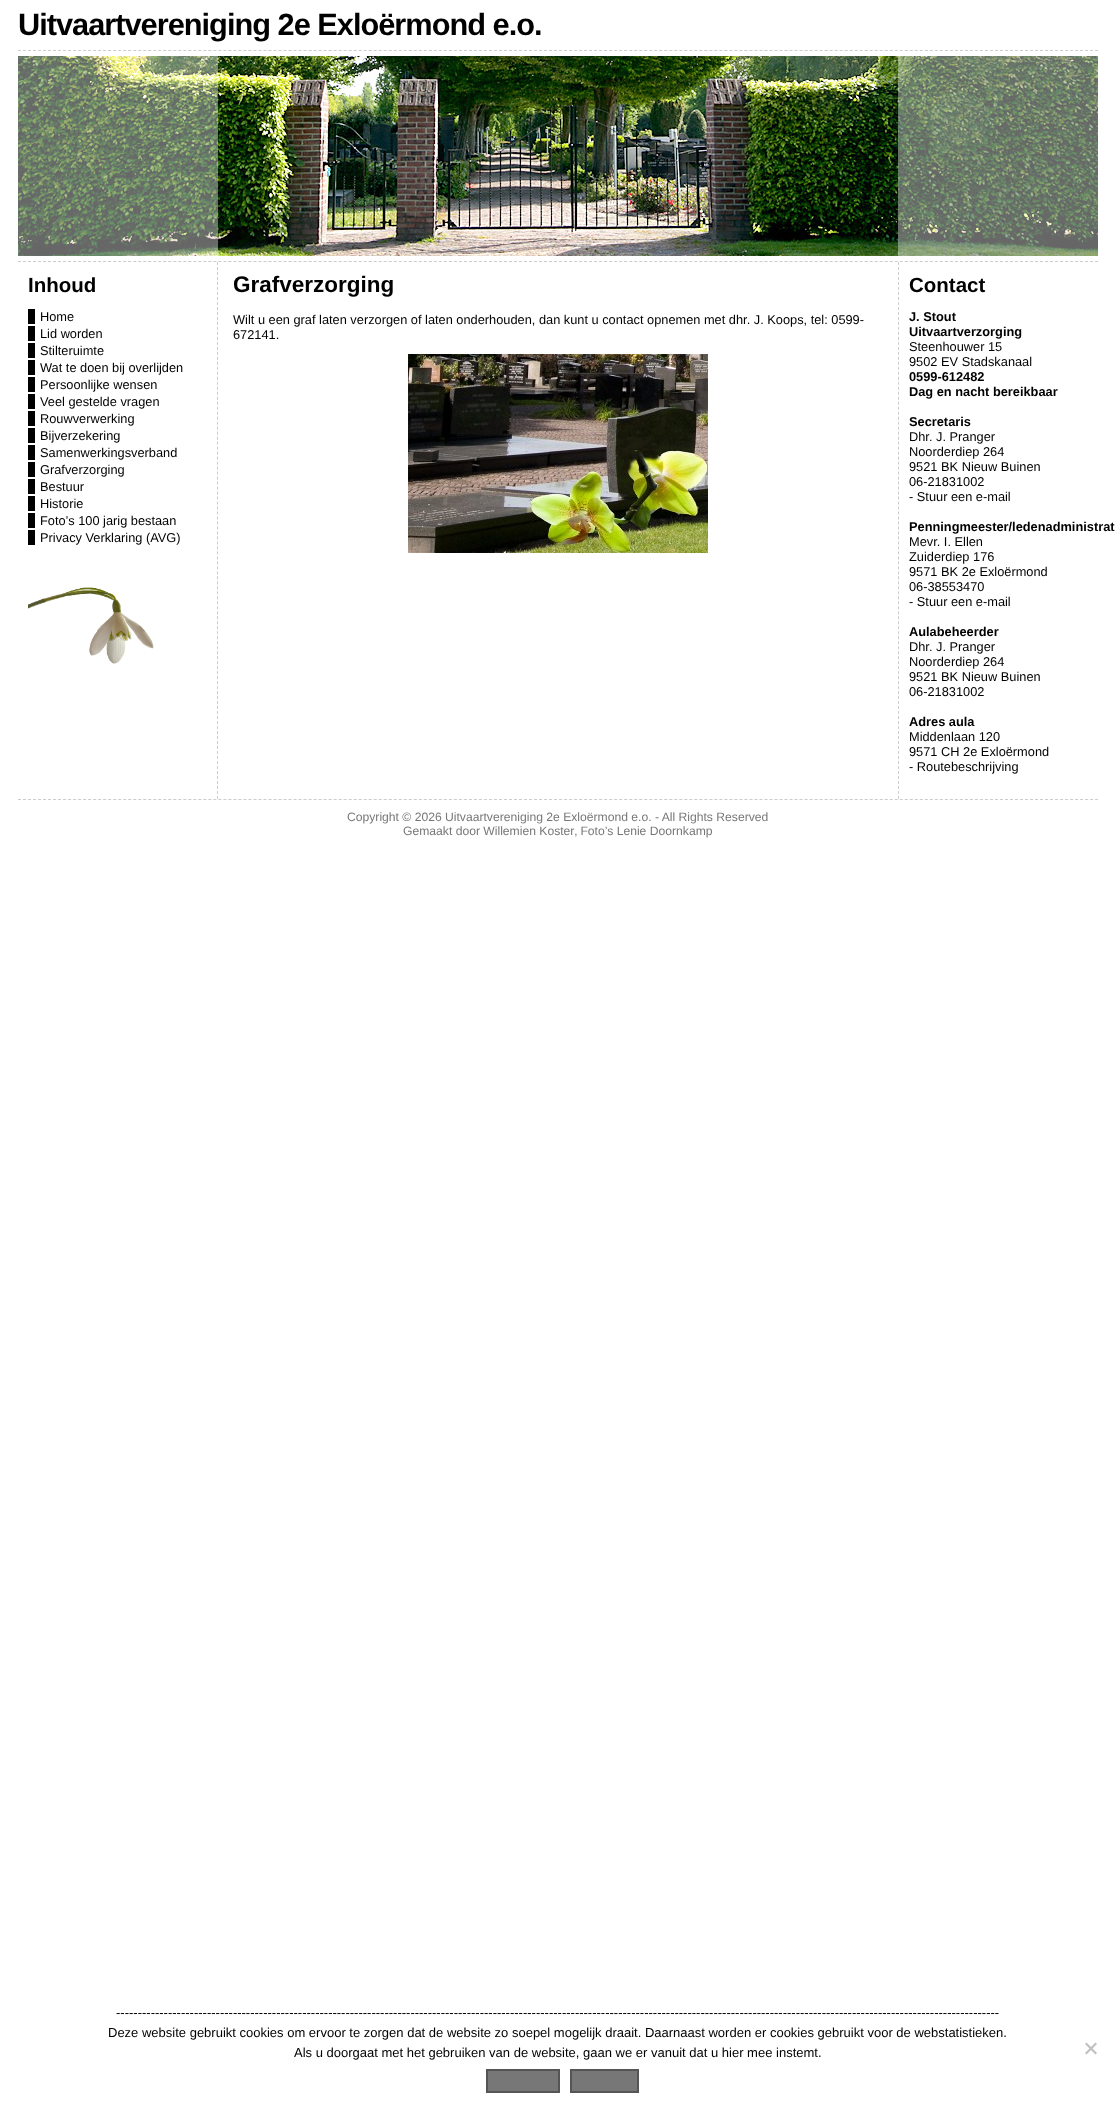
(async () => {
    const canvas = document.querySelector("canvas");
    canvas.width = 1115;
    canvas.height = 2108;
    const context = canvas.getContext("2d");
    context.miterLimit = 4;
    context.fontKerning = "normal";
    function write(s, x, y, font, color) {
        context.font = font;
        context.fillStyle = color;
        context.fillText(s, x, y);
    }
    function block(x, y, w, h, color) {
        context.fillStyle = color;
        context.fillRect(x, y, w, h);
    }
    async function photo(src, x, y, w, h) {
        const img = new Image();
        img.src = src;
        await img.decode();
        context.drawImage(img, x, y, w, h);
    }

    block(0, 0, 1115, 2108, "rgb(255, 255, 255)");
    context.letterSpacing = "-1px";
    write("Uitvaartvereniging 2e Exloërmond e.o.", 18, 35, "bold 30.75px Liberation Sans", "rgb(0, 0, 0)");
    context.beginPath();
    context.moveTo(18, 50.5);
    context.lineTo(1098, 50.5);
    context.strokeStyle = "rgb(204, 204, 204)";
    context.setLineDash([3, 2.01]);
    context.stroke();
    await photo("media/1.png", 18, 56, 1080, 200);
    block(18, 56, 200, 200, "rgba(255, 255, 255, 0.4)");
    block(898, 56, 200, 200, "rgba(255, 255, 255, 0.4)");
    context.beginPath();
    context.moveTo(18, 261.5);
    context.lineTo(1098, 261.5);
    context.stroke();
    context.beginPath();
    context.moveTo(217.5, 262);
    context.lineTo(217.5, 799);
    context.setLineDash([3, 1.99]);
    context.stroke();
    context.letterSpacing = "0px";
    write("Inhoud", 28, 292, "bold 20.5px Liberation Sans", "rgb(0, 0, 0)");
    block(28, 309, 7, 15, "rgb(0, 0, 0)");
    write("Home", 40, 321, "12.8px Liberation Sans", "rgb(0, 0, 0)");
    block(28, 326, 7, 15, "rgb(0, 0, 0)");
    write("Lid worden", 40, 338, "12.8px Liberation Sans", "rgb(0, 0, 0)");
    block(28, 343, 7, 15, "rgb(0, 0, 0)");
    write("Stilteruimte", 40, 355, "12.8px Liberation Sans", "rgb(0, 0, 0)");
    block(28, 360, 7, 15, "rgb(0, 0, 0)");
    write("Wat te doen bij overlijden", 40, 372, "12.8px Liberation Sans", "rgb(0, 0, 0)");
    block(28, 377, 7, 15, "rgb(0, 0, 0)");
    write("Persoonlijke wensen", 40, 389, "12.8px Liberation Sans", "rgb(0, 0, 0)");
    block(28, 394, 7, 15, "rgb(0, 0, 0)");
    write("Veel gestelde vragen", 40, 406, "12.8px Liberation Sans", "rgb(0, 0, 0)");
    block(28, 411, 7, 15, "rgb(0, 0, 0)");
    write("Rouwverwerking", 40, 423, "12.8px Liberation Sans", "rgb(0, 0, 0)");
    block(28, 428, 7, 15, "rgb(0, 0, 0)");
    write("Bijverzekering", 40, 440, "12.8px Liberation Sans", "rgb(0, 0, 0)");
    block(28, 445, 7, 15, "rgb(0, 0, 0)");
    write("Samenwerkingsverband", 40, 457, "12.8px Liberation Sans", "rgb(0, 0, 0)");
    block(28, 462, 7, 15, "rgb(0, 0, 0)");
    write("Grafverzorging", 40, 474, "12.8px Liberation Sans", "rgb(0, 0, 0)");
    block(28, 479, 7, 15, "rgb(0, 0, 0)");
    write("Bestuur", 40, 491, "12.8px Liberation Sans", "rgb(0, 0, 0)");
    block(28, 496, 7, 15, "rgb(0, 0, 0)");
    write("Historie", 40, 508, "12.8px Liberation Sans", "rgb(0, 0, 0)");
    block(28, 513, 7, 15, "rgb(0, 0, 0)");
    write("Foto’s 100 jarig bestaan", 40, 525, "12.8px Liberation Sans", "rgb(0, 0, 0)");
    block(28, 530, 7, 15, "rgb(0, 0, 0)");
    write("Privacy Verklaring (AVG)", 40, 542, "12.8px Liberation Sans", "rgb(0, 0, 0)");
    await photo("media/2.png", 28, 587, 126, 77);
    write("Grafverzorging", 233, 292, "bold 22.5px Liberation Sans", "rgb(0, 0, 0)");
    write("Wilt u een graf laten verzorgen of laten onderhouden, dan kunt u contact opnemen met dhr. J. Koops, tel: 0599-", 233, 324, "12.8px Liberation Sans", "rgb(0, 0, 0)");
    write("672141.", 233, 339, "12.8px Liberation Sans", "rgb(0, 0, 0)");
    await photo("media/3.png", 408, 354, 300, 199);
    context.beginPath();
    context.moveTo(898.5, 262);
    context.lineTo(898.5, 799);
    context.stroke();
    write("Contact", 909, 292, "bold 20.5px Liberation Sans", "rgb(0, 0, 0)");
    write("J. Stout", 909, 321, "bold 12.8px Liberation Sans", "rgb(0, 0, 0)");
    write("Uitvaartverzorging", 909, 336, "bold 12.8px Liberation Sans", "rgb(0, 0, 0)");
    write("Steenhouwer 15", 909, 351, "12.8px Liberation Sans", "rgb(0, 0, 0)");
    write("9502 EV Stadskanaal", 909, 366, "12.8px Liberation Sans", "rgb(0, 0, 0)");
    write("0599-612482", 909, 381, "bold 12.8px Liberation Sans", "rgb(0, 0, 0)");
    write("Dag en nacht bereikbaar", 909, 396, "bold 12.8px Liberation Sans", "rgb(0, 0, 0)");
    write("Secretaris", 909, 426, "bold 12.8px Liberation Sans", "rgb(0, 0, 0)");
    write("Dhr. J. Pranger", 909, 441, "12.8px Liberation Sans", "rgb(0, 0, 0)");
    write("Noorderdiep 264", 909, 456, "12.8px Liberation Sans", "rgb(0, 0, 0)");
    write("9521 BK Nieuw Buinen", 909, 471, "12.8px Liberation Sans", "rgb(0, 0, 0)");
    write("06-21831002", 909, 486, "12.8px Liberation Sans", "rgb(0, 0, 0)");
    write("- Stuur een e-mail", 909, 501, "12.8px Liberation Sans", "rgb(0, 0, 0)");
    write("Penningmeester/ledenadministrat", 909, 531, "bold 12.8px Liberation Sans", "rgb(0, 0, 0)");
    write("Mevr. I. Ellen", 909, 546, "12.8px Liberation Sans", "rgb(0, 0, 0)");
    write("Zuiderdiep 176", 909, 561, "12.8px Liberation Sans", "rgb(0, 0, 0)");
    write("9571 BK 2e Exloërmond", 909, 576, "12.8px Liberation Sans", "rgb(0, 0, 0)");
    write("06-38553470", 909, 591, "12.8px Liberation Sans", "rgb(0, 0, 0)");
    write("- Stuur een e-mail", 909, 606, "12.8px Liberation Sans", "rgb(0, 0, 0)");
    write("Aulabeheerder", 909, 636, "bold 12.8px Liberation Sans", "rgb(0, 0, 0)");
    write("Dhr. J. Pranger", 909, 651, "12.8px Liberation Sans", "rgb(0, 0, 0)");
    write("Noorderdiep 264", 909, 666, "12.8px Liberation Sans", "rgb(0, 0, 0)");
    write("9521 BK Nieuw Buinen", 909, 681, "12.8px Liberation Sans", "rgb(0, 0, 0)");
    write("06-21831002", 909, 696, "12.8px Liberation Sans", "rgb(0, 0, 0)");
    write("Adres aula", 909, 726, "bold 12.8px Liberation Sans", "rgb(0, 0, 0)");
    write("Middenlaan 120", 909, 741, "12.8px Liberation Sans", "rgb(0, 0, 0)");
    write("9571 CH 2e Exloërmond", 909, 756, "12.8px Liberation Sans", "rgb(0, 0, 0)");
    write("- Routebeschrijving", 909, 771, "12.8px Liberation Sans", "rgb(0, 0, 0)");
    context.beginPath();
    context.moveTo(18, 799.5);
    context.lineTo(1098, 799.5);
    context.setLineDash([3, 2.01]);
    context.stroke();
    write("Copyright © 2026 Uitvaartvereniging 2e Exloërmond e.o. - All Rights Reserved", 347, 821, "12.15px Liberation Sans", "rgb(119, 119, 119)");
    write("Gemaakt door Willemien Koster‚ Foto’s Lenie Doornkamp", 403, 835, "12.15px Liberation Sans", "rgb(119, 119, 119)");
    write("------------------------------------------------------------------------------------------------------------------------------------------------------------------------------------------------------------", 116, 2017, "13px Liberation Sans", "rgb(0, 0, 0)");
    write("Deze website gebruikt cookies om ervoor te zorgen dat de website zo soepel mogelijk draait. Daarnaast worden er cookies gebruikt voor de webstatistieken.", 108, 2037, "13px Liberation Sans", "rgb(0, 0, 0)");
    write("Als u doorgaat met het gebruiken van de website, gaan we er vanuit dat u hier mee instemt.", 294, 2057, "13px Liberation Sans", "rgb(0, 0, 0)");
    context.fillStyle = "rgb(192, 192, 192)";
    context.beginPath();
    context.moveTo(1095.5, 2042.5);
    context.lineTo(1097, 2044);
    context.lineTo(1086.5, 2054.5);
    context.lineTo(1085, 2053);
    context.closePath();
    context.fill();
    context.beginPath();
    context.moveTo(1085, 2044);
    context.lineTo(1086.5, 2042.5);
    context.lineTo(1097, 2053);
    context.lineTo(1095.5, 2054.5);
    context.closePath();
    context.fill();
    context.fillStyle = "rgb(119, 119, 119)";
    context.beginPath();
    context.rect(487, 2070, 72, 22);
    context.fill();
    context.strokeStyle = "rgb(85, 85, 85)";
    context.lineWidth = 2;
    context.setLineDash([]);
    context.stroke();
    context.beginPath();
    context.rect(571, 2070, 67, 22);
    context.fill();
    context.stroke();
})();
